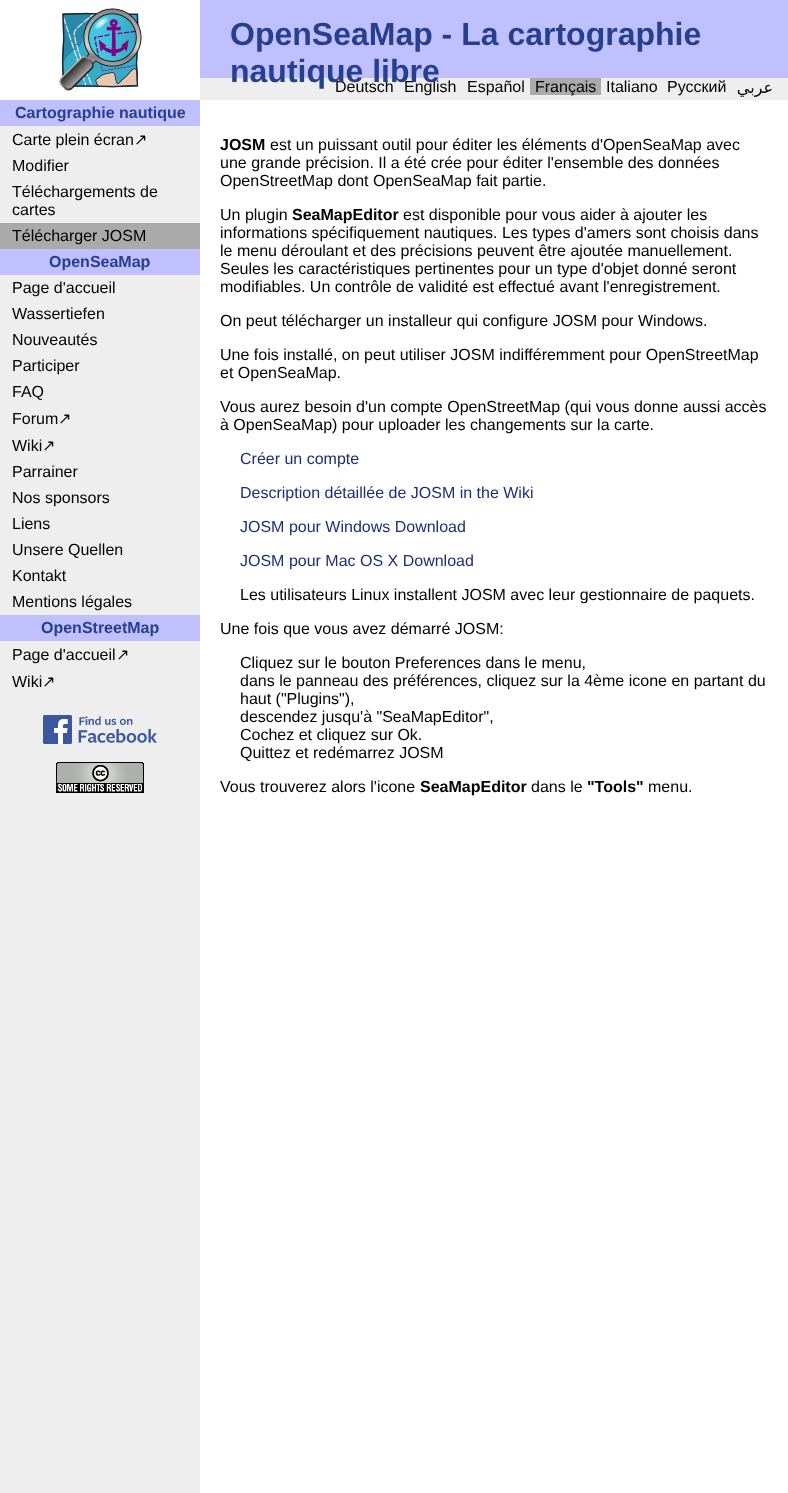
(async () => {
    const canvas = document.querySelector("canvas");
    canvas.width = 788;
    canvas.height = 1493;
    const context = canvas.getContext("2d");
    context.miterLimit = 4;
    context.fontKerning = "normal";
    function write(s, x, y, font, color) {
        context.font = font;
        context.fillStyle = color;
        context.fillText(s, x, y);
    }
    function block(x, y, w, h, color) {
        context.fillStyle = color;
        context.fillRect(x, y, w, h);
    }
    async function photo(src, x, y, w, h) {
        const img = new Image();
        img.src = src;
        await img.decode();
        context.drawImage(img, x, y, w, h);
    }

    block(0, 0, 788, 1493, "rgb(255, 255, 255)");
    block(0, 126, 200, 1367, "rgb(238, 238, 238)");
    await photo("media/1.png", 0, 0, 200, 100);
    block(200, 0, 588, 78, "rgb(192, 192, 255)");
    write("OpenSeaMap - La cartographie", 230, 45, "bold 32px Liberation Sans", "rgb(39, 64, 139)");
    block(200, 78, 588, 22, "rgb(238, 238, 238)");
    write("Deutsch", 335, 92, "16px Liberation Sans", "rgb(0, 0, 0)");
    write("English", 404, 92, "16px Liberation Sans", "rgb(0, 0, 0)");
    write("nautique libre", 230, 82, "bold 32px Liberation Sans", "rgb(39, 64, 139)");
    write("Español", 467, 92, "16px Liberation Sans", "rgb(0, 0, 0)");
    block(530, 78, 71, 17, "rgb(170, 170, 170)");
    write("Français", 535, 92, "16px Liberation Sans", "rgb(0, 0, 0)");
    write("Italiano", 606, 92, "16px Liberation Sans", "rgb(0, 0, 0)");
    write("Русский", 667, 92, "16px Liberation Sans", "rgb(0, 0, 0)");
    context.direction = "rtl";
    write("عربي", 773, 93, "16px DejaVu Sans", "rgb(0, 0, 0)");
    block(0, 100, 200, 26, "rgb(192, 192, 255)");
    context.direction = "ltr";
    write("Cartographie nautique", 15, 118, "bold 16px Liberation Sans", "rgb(39, 64, 139)");
    write("Carte plein écran", 12, 145, "16px Liberation Sans", "rgb(0, 0, 0)");
    write("↗", 134, 145, "16px DejaVu Sans", "rgb(0, 0, 0)");
    write("Modifier", 12, 171, "16px Liberation Sans", "rgb(0, 0, 0)");
    write("Téléchargements de", 12, 197, "16px Liberation Sans", "rgb(0, 0, 0)");
    write("cartes", 12, 215, "16px Liberation Sans", "rgb(0, 0, 0)");
    block(0, 223, 200, 26, "rgb(170, 170, 170)");
    write("Télécharger JOSM", 12, 241, "16px Liberation Sans", "rgb(0, 0, 0)");
    block(0, 249, 200, 26, "rgb(192, 192, 255)");
    write("OpenSeaMap", 49, 267, "bold 16px Liberation Sans", "rgb(39, 64, 139)");
    write("Page d'accueil", 12, 293, "16px Liberation Sans", "rgb(0, 0, 0)");
    write("Wassertiefen", 12, 319, "16px Liberation Sans", "rgb(0, 0, 0)");
    write("Nouveautés", 12, 345, "16px Liberation Sans", "rgb(0, 0, 0)");
    write("Participer", 12, 371, "16px Liberation Sans", "rgb(0, 0, 0)");
    write("FAQ", 12, 397, "16px Liberation Sans", "rgb(0, 0, 0)");
    write("Forum", 12, 424, "16px Liberation Sans", "rgb(0, 0, 0)");
    write("↗", 58, 424, "16px DejaVu Sans", "rgb(0, 0, 0)");
    write("Wiki", 12, 451, "16px Liberation Sans", "rgb(0, 0, 0)");
    write("↗", 42, 451, "16px DejaVu Sans", "rgb(0, 0, 0)");
    write("Parrainer", 12, 477, "16px Liberation Sans", "rgb(0, 0, 0)");
    write("Nos sponsors", 12, 503, "16px Liberation Sans", "rgb(0, 0, 0)");
    write("Liens", 12, 529, "16px Liberation Sans", "rgb(0, 0, 0)");
    write("Unsere Quellen", 12, 555, "16px Liberation Sans", "rgb(0, 0, 0)");
    write("Kontakt", 12, 581, "16px Liberation Sans", "rgb(0, 0, 0)");
    write("Mentions légales", 12, 607, "16px Liberation Sans", "rgb(0, 0, 0)");
    block(0, 615, 200, 26, "rgb(192, 192, 255)");
    write("OpenStreetMap", 41, 633, "bold 16px Liberation Sans", "rgb(39, 64, 139)");
    write("Page d'accueil", 12, 660, "16px Liberation Sans", "rgb(0, 0, 0)");
    write("↗", 116, 660, "16px DejaVu Sans", "rgb(0, 0, 0)");
    write("Wiki", 12, 687, "16px Liberation Sans", "rgb(0, 0, 0)");
    write("↗", 42, 687, "16px DejaVu Sans", "rgb(0, 0, 0)");
    await photo("media/2.png", 43, 715, 114, 29);
    await photo("media/3.png", 56, 762, 88, 31);
    write("JOSM", 220, 150, "bold 16px Liberation Sans", "rgb(0, 0, 0)");
    write("est un puissant outil pour éditer les éléments d'OpenSeaMap avec", 270, 150, "16px Liberation Sans", "rgb(0, 0, 0)");
    write("une grande précision. Il a été crée pour éditer l'ensemble des données", 220, 168, "16px Liberation Sans", "rgb(0, 0, 0)");
    write("OpenStreetMap dont OpenSeaMap fait partie.", 220, 186, "16px Liberation Sans", "rgb(0, 0, 0)");
    write("Un plugin", 220, 220, "16px Liberation Sans", "rgb(0, 0, 0)");
    write("SeaMapEditor", 292, 220, "bold 16px Liberation Sans", "rgb(0, 0, 0)");
    write("est disponible pour vous aider à ajouter les", 403, 220, "16px Liberation Sans", "rgb(0, 0, 0)");
    write("informations spécifiquement nautiques. Les types d'amers sont choisis dans", 220, 238, "16px Liberation Sans", "rgb(0, 0, 0)");
    write("le menu déroulant et des précisions peuvent être ajoutée manuellement.", 220, 256, "16px Liberation Sans", "rgb(0, 0, 0)");
    write("Seules les caractéristiques pertinentes pour un type d'objet donné seront", 220, 274, "16px Liberation Sans", "rgb(0, 0, 0)");
    write("modifiables. Un contrôle de validité est effectué avant l'enregistrement.", 220, 292, "16px Liberation Sans", "rgb(0, 0, 0)");
    write("On peut télécharger un installeur qui configure JOSM pour Windows.", 220, 326, "16px Liberation Sans", "rgb(0, 0, 0)");
    write("Une fois installé, on peut utiliser JOSM indifféremment pour OpenStreetMap", 220, 360, "16px Liberation Sans", "rgb(0, 0, 0)");
    write("et OpenSeaMap.", 220, 378, "16px Liberation Sans", "rgb(0, 0, 0)");
    write("Vous aurez besoin d'un compte OpenStreetMap (qui vous donne aussi accès", 220, 412, "16px Liberation Sans", "rgb(0, 0, 0)");
    write("à OpenSeaMap) pour uploader les changements sur la carte.", 220, 430, "16px Liberation Sans", "rgb(0, 0, 0)");
    write("Créer un compte", 240, 464, "16px Liberation Sans", "rgb(30, 45, 120)");
    write("Description détaillée de JOSM in the Wiki", 240, 498, "16px Liberation Sans", "rgb(30, 45, 120)");
    write("JOSM pour Windows Download", 240, 532, "16px Liberation Sans", "rgb(30, 45, 120)");
    write("JOSM pour Mac OS X Download", 240, 566, "16px Liberation Sans", "rgb(30, 45, 120)");
    write("Les utilisateurs Linux installent JOSM avec leur gestionnaire de paquets.", 240, 600, "16px Liberation Sans", "rgb(0, 0, 0)");
    write("Une fois que vous avez démarré JOSM:", 220, 634, "16px Liberation Sans", "rgb(0, 0, 0)");
    write("Cliquez sur le bouton Preferences dans le menu,", 240, 668, "16px Liberation Sans", "rgb(0, 0, 0)");
    write("dans le panneau des préférences, cliquez sur la 4ème icone en partant du", 240, 686, "16px Liberation Sans", "rgb(0, 0, 0)");
    write("haut (\"Plugins\"),", 240, 704, "16px Liberation Sans", "rgb(0, 0, 0)");
    write("descendez jusqu'à \"SeaMapEditor\",", 240, 722, "16px Liberation Sans", "rgb(0, 0, 0)");
    write("Cochez et cliquez sur Ok.", 240, 740, "16px Liberation Sans", "rgb(0, 0, 0)");
    write("Quittez et redémarrez JOSM", 240, 758, "16px Liberation Sans", "rgb(0, 0, 0)");
    write("Vous trouverez alors l'icone", 220, 792, "16px Liberation Sans", "rgb(0, 0, 0)");
    write("SeaMapEditor", 420, 792, "bold 16px Liberation Sans", "rgb(0, 0, 0)");
    write("dans le", 531, 792, "16px Liberation Sans", "rgb(0, 0, 0)");
    write("\"Tools\"", 587, 792, "bold 16px Liberation Sans", "rgb(0, 0, 0)");
    write("menu.", 648, 792, "16px Liberation Sans", "rgb(0, 0, 0)");
})();
